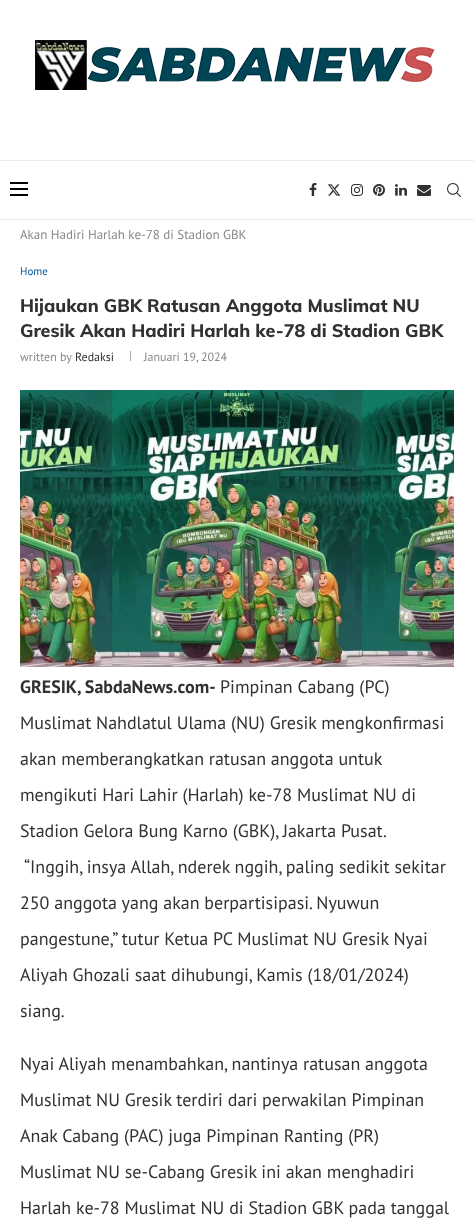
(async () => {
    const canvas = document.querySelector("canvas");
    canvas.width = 474;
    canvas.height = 1221;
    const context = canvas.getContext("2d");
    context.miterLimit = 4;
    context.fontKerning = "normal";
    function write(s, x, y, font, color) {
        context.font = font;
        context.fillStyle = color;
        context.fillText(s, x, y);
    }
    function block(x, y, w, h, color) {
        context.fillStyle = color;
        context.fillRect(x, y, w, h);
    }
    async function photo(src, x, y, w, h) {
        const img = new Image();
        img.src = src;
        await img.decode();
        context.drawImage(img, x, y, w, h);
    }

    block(0, 0, 474, 1221, "rgb(255, 255, 255)");
    await photo("media/1.png", 35, 40, 400, 50);
    block(0, 160, 474, 1, "rgb(236, 236, 236)");
    block(0, 219, 474, 1, "rgb(236, 236, 236)");
    block(10, 182, 18, 2, "rgb(0, 0, 0)");
    block(10, 188, 18, 2, "rgb(0, 0, 0)");
    block(10, 194, 18, 2, "rgb(0, 0, 0)");
    await photo("media/2.png", 309, 183, 8, 13);
    await photo("media/3.png", 327, 184, 14, 12);
    await photo("media/4.png", 351, 184, 12, 12);
    await photo("media/5.png", 373, 184, 12, 12);
    await photo("media/6.png", 395, 184, 12, 12);
    await photo("media/7.png", 417, 185, 14, 11);
    await photo("media/8.png", 447, 183, 14, 14);
    write("Akan Hadiri Harlah ke-78 di Stadion GBK", 20, 239, "13px PT Sans", "rgb(136, 136, 136)");
    write("Home", 20, 275, "11px PT Sans", "rgb(1, 87, 155)");
    write("Hijaukan GBK Ratusan Anggota Muslimat NU", 20, 312, "800 18px Muli", "rgb(49, 49, 49)");
    write("Gresik Akan Hadiri Harlah ke-78 di Stadion GBK", 20, 337, "800 18px Muli", "rgb(49, 49, 49)");
    write("written by", 20, 361, "12px PT Sans", "rgb(136, 136, 136)");
    write("Redaksi", 75, 361, "12px PT Sans", "rgb(49, 49, 49)");
    block(130, 351, 1, 10, "rgb(172, 172, 172)");
    write("Januari 19, 2024", 144, 361, "12px PT Sans", "rgb(136, 136, 136)");
    await photo("media/9.png", 20, 390, 434, 277);
    write("GRESIK, SabdaNews.com-", 20, 693, "bold 18px PT Sans", "rgb(49, 49, 49)");
    write("Pimpinan Cabang (PC)", 220, 693, "18px PT Sans", "rgb(49, 49, 49)");
    write("Muslimat Nahdlatul Ulama (NU) Gresik mengkonfirmasi", 20, 729, "18px PT Sans", "rgb(49, 49, 49)");
    write("akan memberangkatkan ratusan anggota untuk", 20, 765, "18px PT Sans", "rgb(49, 49, 49)");
    write("mengikuti Hari Lahir (Harlah) ke-78 Muslimat NU di", 20, 801, "18px PT Sans", "rgb(49, 49, 49)");
    write("Stadion Gelora Bung Karno (GBK), Jakarta Pusat.", 20, 837, "18px PT Sans", "rgb(49, 49, 49)");
    write("“Inggih, insya Allah, nderek nggih, paling sedikit sekitar", 24, 873, "18px PT Sans", "rgb(49, 49, 49)");
    write("250 anggota yang akan berpartisipasi. Nyuwun", 20, 909, "18px PT Sans", "rgb(49, 49, 49)");
    write("pangestune,” tutur Ketua PC Muslimat NU Gresik Nyai", 20, 945, "18px PT Sans", "rgb(49, 49, 49)");
    write("Aliyah Ghozali saat dihubungi, Kamis (18/01/2024)", 20, 981, "18px PT Sans", "rgb(49, 49, 49)");
    write("siang.", 20, 1017, "18px PT Sans", "rgb(49, 49, 49)");
    write("Nyai Aliyah menambahkan, nantinya ratusan anggota", 20, 1070, "18px PT Sans", "rgb(49, 49, 49)");
    write("Muslimat NU Gresik terdiri dari perwakilan Pimpinan", 20, 1106, "18px PT Sans", "rgb(49, 49, 49)");
    write("Anak Cabang (PAC) juga Pimpinan Ranting (PR)", 20, 1142, "18px PT Sans", "rgb(49, 49, 49)");
    write("Muslimat NU se-Cabang Gresik ini akan menghadiri", 20, 1178, "18px PT Sans", "rgb(49, 49, 49)");
    write("Harlah ke-78 Muslimat NU di Stadion GBK pada tanggal", 20, 1214, "18px PT Sans", "rgb(49, 49, 49)");
})();
